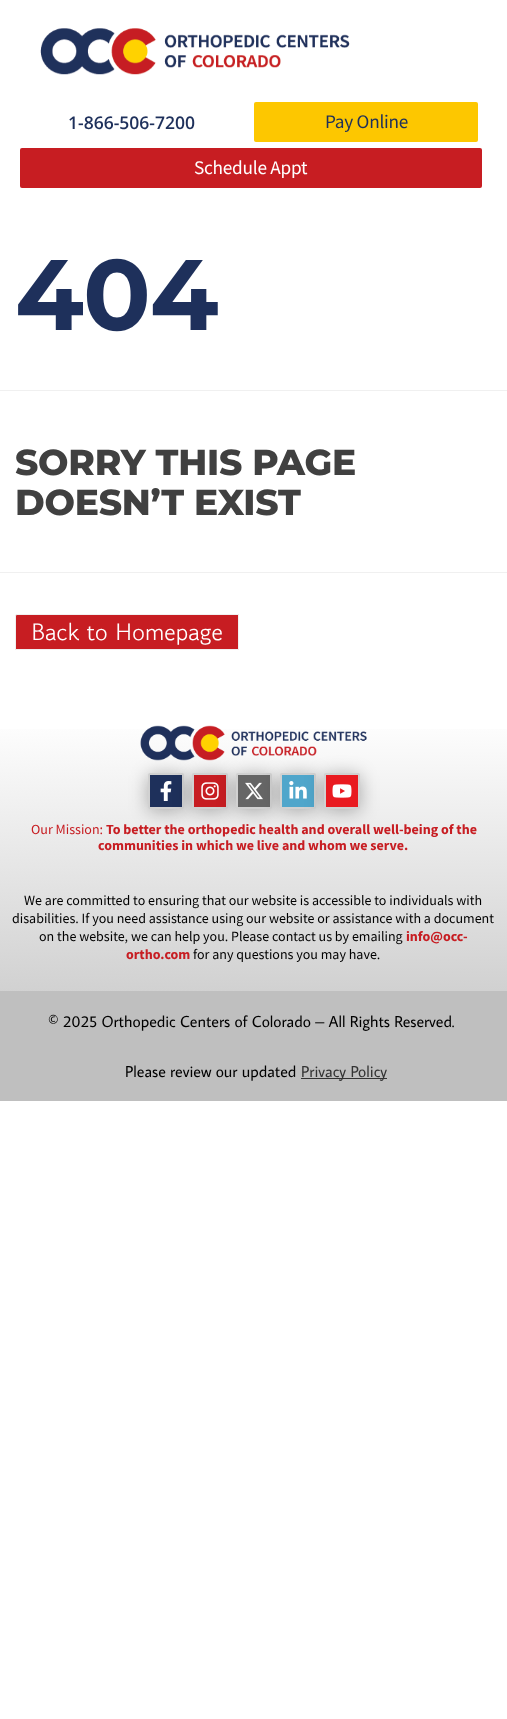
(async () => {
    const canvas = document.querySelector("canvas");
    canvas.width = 507;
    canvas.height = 1719;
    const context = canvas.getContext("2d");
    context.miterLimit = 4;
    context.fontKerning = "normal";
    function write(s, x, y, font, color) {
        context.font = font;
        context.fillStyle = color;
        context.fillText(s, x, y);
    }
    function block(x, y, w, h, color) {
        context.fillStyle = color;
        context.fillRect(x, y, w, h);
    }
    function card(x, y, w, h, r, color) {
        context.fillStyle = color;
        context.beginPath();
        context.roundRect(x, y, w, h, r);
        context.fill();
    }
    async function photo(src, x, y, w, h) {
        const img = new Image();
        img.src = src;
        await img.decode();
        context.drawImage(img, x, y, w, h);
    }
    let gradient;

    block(0, 0, 507, 1719, "rgb(255, 255, 255)");
    await photo("media/1.png", 40, 28, 310, 47);
    write("1-866-506-7200", 68, 129, "600 17.5px Open Sans", "rgb(30, 48, 91)");
    card(254, 102, 224, 40, 2, "rgb(253, 199, 0)");
    context.letterSpacing = "-0.25px";
    write("Pay Online", 325, 128, "19.25px Source Sans Pro", "rgb(30, 48, 91)");
    card(20, 148, 462, 40, 2, "rgb(199, 29, 34)");
    write("Schedule Appt", 194, 174, "19.25px Source Sans Pro", "rgb(255, 255, 255)");
    context.letterSpacing = "-1px";
    write("404", 15, 330, "bold 100px Montserrat", "rgb(30, 48, 91)");
    block(0, 390, 507, 1, "rgb(240, 240, 240)");
    block(0, 572, 507, 1, "rgb(240, 240, 240)");
    context.letterSpacing = "-0.25px";
    write("SORRY THIS PAGE", 15, 475, "800 36px Montserrat", "rgb(64, 64, 64)");
    write("DOESN’T EXIST", 15, 515, "800 36px Montserrat", "rgb(64, 64, 64)");
    context.fillStyle = "rgb(199, 29, 34)";
    context.beginPath();
    context.roundRect(15.5, 614.5, 223, 35, [1.5, 0, 0, 0]);
    context.fill();
    context.strokeStyle = "rgb(240, 240, 240)";
    context.stroke();
    context.letterSpacing = "0px";
    write("Back to Homepage", 31, 642, "24px Gowun Dodum", "rgb(255, 255, 255)");
    gradient = context.createLinearGradient(253, 715, 254, 991);
    gradient.addColorStop(0, "rgb(255, 255, 255)");
    gradient.addColorStop(1, "rgb(209, 209, 209)");
    context.fillStyle = gradient;
    context.fillRect(0, 729, 507, 262);
    await photo("media/2.png", 140, 725, 227, 36);
    context.fillStyle = "rgba(0, 0, 0, 0.3)";
    context.filter = "blur(9px)";
    context.beginPath();
    context.roundRect(148, 775, 36, 36, 2);
    context.fill();
    context.filter = "none";
    context.fillStyle = "rgb(30, 48, 91)";
    context.beginPath();
    context.roundRect(149, 774, 34, 34, 1);
    context.fill();
    context.strokeStyle = "rgb(209, 209, 209)";
    context.lineWidth = 2;
    context.stroke();
    context.fillStyle = "rgba(0, 0, 0, 0.3)";
    context.filter = "blur(9px)";
    context.beginPath();
    context.roundRect(192, 775, 36, 36, 2);
    context.fill();
    context.filter = "none";
    await photo("media/3.png", 160, 781, 12, 20);
    context.fillStyle = "rgb(199, 29, 34)";
    context.beginPath();
    context.roundRect(193, 774, 34, 34, 1);
    context.fill();
    context.stroke();
    context.fillStyle = "rgba(0, 0, 0, 0.3)";
    context.filter = "blur(9px)";
    context.beginPath();
    context.roundRect(236, 775, 36, 36, 2);
    context.fill();
    context.filter = "none";
    await photo("media/4.png", 201, 782, 18, 18);
    context.fillStyle = "rgb(102, 102, 102)";
    context.beginPath();
    context.roundRect(237, 774, 34, 34, 1);
    context.fill();
    context.stroke();
    context.fillStyle = "rgba(0, 0, 0, 0.3)";
    context.filter = "blur(9px)";
    context.beginPath();
    context.roundRect(280, 775, 36, 36, 2);
    context.fill();
    context.filter = "none";
    await photo("media/5.png", 245, 782, 18, 18);
    context.fillStyle = "rgb(80, 166, 203)";
    context.beginPath();
    context.roundRect(281, 774, 34, 34, 1);
    context.fill();
    context.stroke();
    context.fillStyle = "rgba(0, 0, 0, 0.3)";
    context.filter = "blur(9px)";
    context.beginPath();
    context.roundRect(324, 775, 36, 36, 2);
    context.fill();
    context.filter = "none";
    await photo("media/6.png", 289, 781, 18, 18);
    context.fillStyle = "rgb(233, 26, 32)";
    context.beginPath();
    context.roundRect(325, 774, 34, 34, 1);
    context.fill();
    context.stroke();
    await photo("media/7.png", 332, 784, 20, 14);
    write("Our Mission:", 31, 834, "14px Source Sans Pro", "rgb(199, 29, 34)");
    write("To better the orthopedic health and overall well-being of the", 106, 834, "bold 14px Source Sans Pro", "rgb(199, 29, 34)");
    write("communities in which we live and whom we serve.", 98, 850, "bold 14px Source Sans Pro", "rgb(199, 29, 34)");
    write("We are committed to ensuring that our website is accessible to individuals with", 24, 905, "14px Source Sans Pro", "rgb(0, 0, 0)");
    write("disabilities. If you need assistance using our website or assistance with a document", 12, 923, "14px Source Sans Pro", "rgb(0, 0, 0)");
    write("on the website, we can help you. Please contact us by emailing", 39, 941, "14px Source Sans Pro", "rgb(0, 0, 0)");
    write("info@occ-", 406, 941, "bold 14px Source Sans Pro", "rgb(199, 29, 34)");
    write("ortho.com", 126, 959, "bold 14px Source Sans Pro", "rgb(199, 29, 34)");
    write("for any questions you may have.", 193, 959, "14px Source Sans Pro", "rgb(0, 0, 0)");
    block(0, 991, 507, 110, "rgb(191, 191, 191)");
    write("© 2025 Orthopedic Centers of Colorado – All Rights Reserved.", 48, 1027, "16px Average Sans", "rgb(0, 0, 0)");
    write("Please review our updated", 125, 1077, "16px Average Sans", "rgb(0, 0, 0)");
    block(301, 1078, 86, 1, "rgb(51, 51, 51)");
    write("Privacy Policy", 301, 1077, "16px Average Sans", "rgb(51, 51, 51)");
})();
